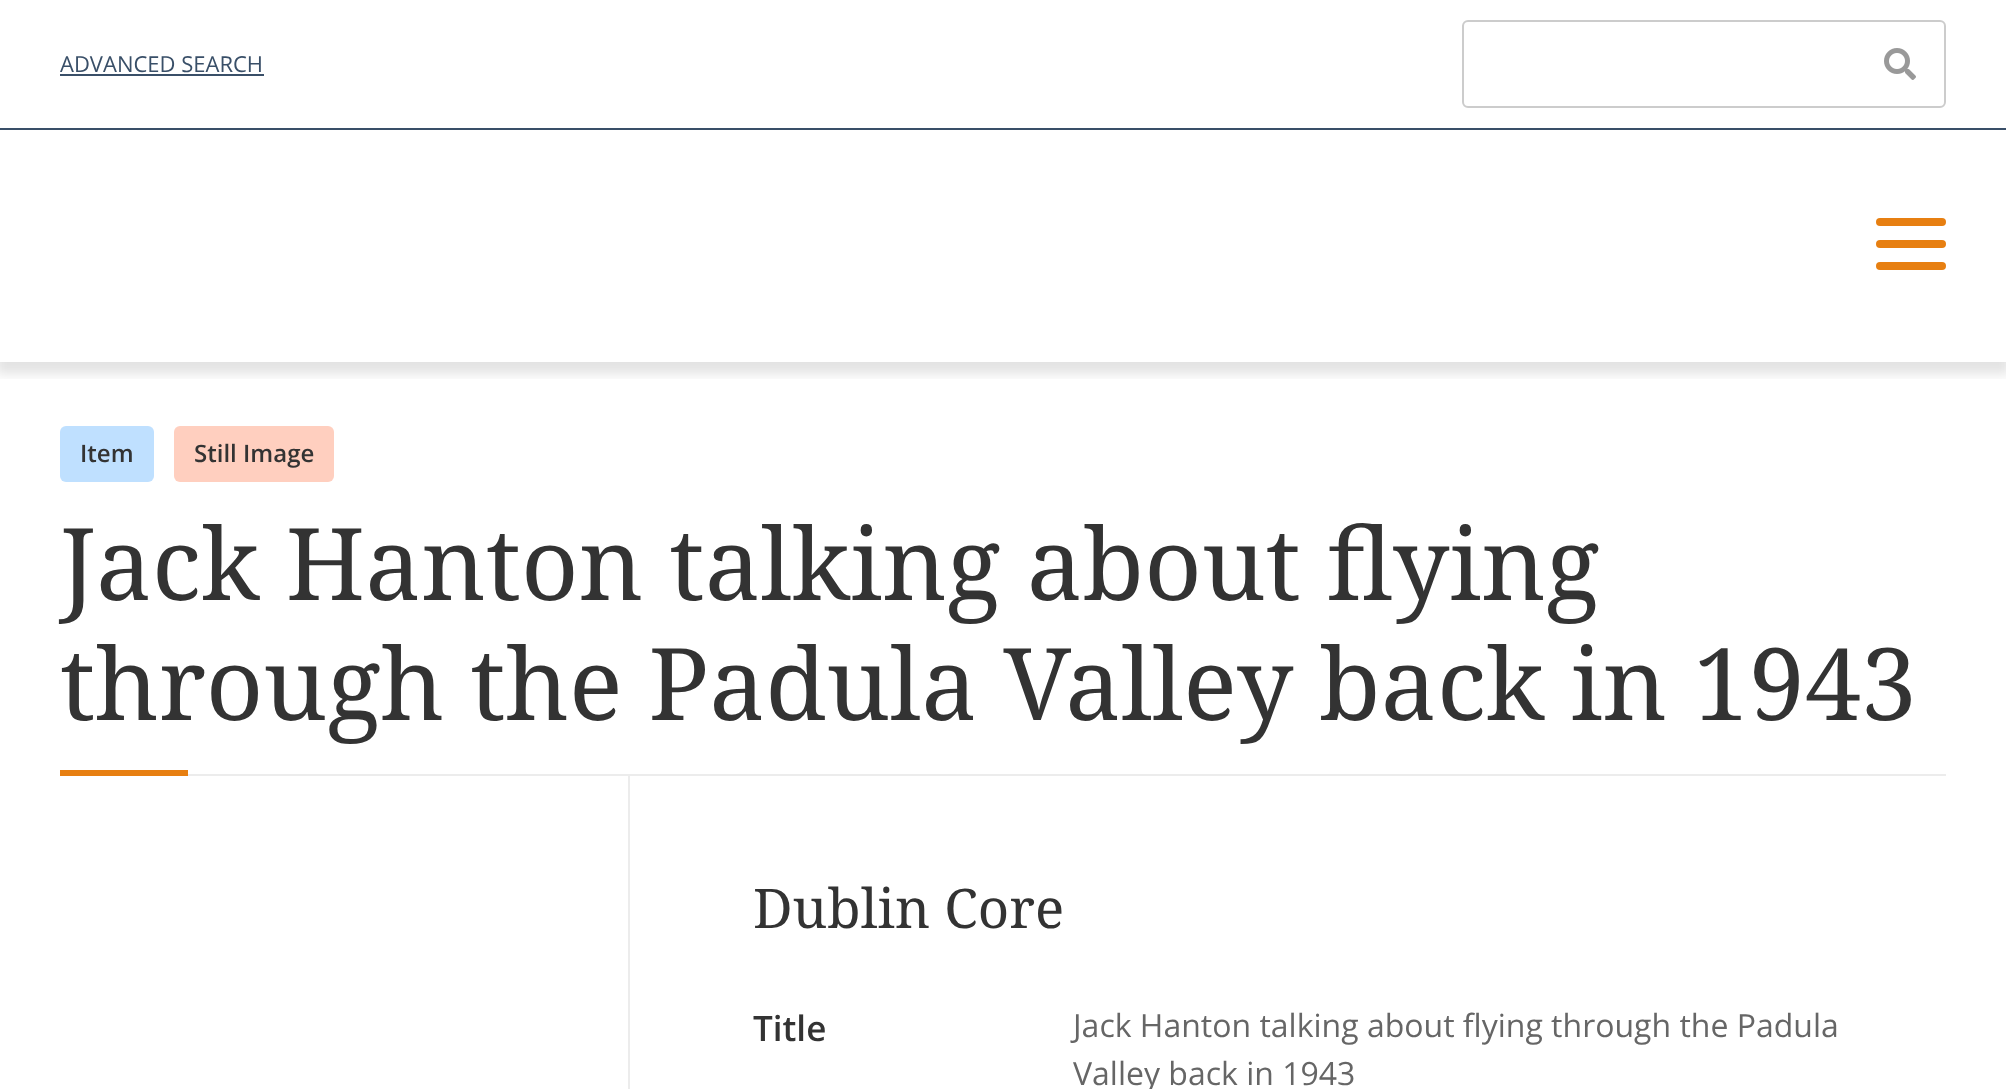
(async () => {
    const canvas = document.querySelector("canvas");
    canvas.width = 2006;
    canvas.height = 1089;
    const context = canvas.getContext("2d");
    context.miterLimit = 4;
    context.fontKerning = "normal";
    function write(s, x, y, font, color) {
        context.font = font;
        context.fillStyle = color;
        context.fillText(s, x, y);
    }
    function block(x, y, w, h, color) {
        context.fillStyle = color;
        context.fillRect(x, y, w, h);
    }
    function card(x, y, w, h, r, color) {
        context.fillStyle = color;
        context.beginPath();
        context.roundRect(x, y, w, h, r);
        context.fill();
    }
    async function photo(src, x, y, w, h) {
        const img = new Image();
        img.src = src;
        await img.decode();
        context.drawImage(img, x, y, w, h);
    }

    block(0, 0, 2006, 1089, "rgb(255, 255, 255)");
    context.save();
    context.beginPath();
    context.rect(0, 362, 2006, 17);
    context.clip();
    context.fillStyle = "rgba(0, 0, 0, 0.11)";
    context.filter = "blur(6px)";
    context.beginPath();
    context.rect(-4, 4, 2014, 370);
    context.fill();
    context.filter = "none";
    context.restore();
    write("ADVANCED SEARCH", 60, 72, "22px Open Sans", "rgb(57, 79, 104)");
    block(60, 74, 204, 2, "rgb(57, 79, 104)");
    context.beginPath();
    context.roundRect(1463, 21, 482, 86, 5);
    context.strokeStyle = "rgb(204, 204, 204)";
    context.lineWidth = 2;
    context.stroke();
    await photo("media/1.png", 1884, 48, 32, 32);
    block(0, 128, 2006, 2, "rgb(57, 79, 104)");
    card(1876, 218, 70, 8, 4, "rgb(231, 127, 17)");
    card(1876, 240, 70, 8, 4, "rgb(231, 127, 17)");
    card(1876, 262, 70, 8, 4, "rgb(231, 127, 17)");
    card(60, 426, 94, 56, 6, "rgb(191, 224, 255)");
    write("Item", 80, 462, "600 24px Open Sans", "rgb(51, 51, 51)");
    card(174, 426, 160, 56, 6, "rgb(255, 207, 191)");
    write("Still Image", 194, 462, "600 24px Open Sans", "rgb(51, 51, 51)");
    block(188, 774, 1758, 2, "rgb(236, 236, 236)");
    write("Jack Hanton talking about flying", 60, 600, "100px Noto Serif", "rgb(51, 51, 51)");
    write("through the Padula Valley back in 1943", 60, 720, "100px Noto Serif", "rgb(51, 51, 51)");
    block(60, 770, 128, 6, "rgb(231, 127, 17)");
    block(628, 776, 2, 313, "rgb(236, 236, 236)");
    write("Dublin Core", 753, 928, "54.5px Noto Serif", "rgb(51, 51, 51)");
    write("Title", 753, 1041, "600 35px Open Sans", "rgb(51, 51, 51)");
    write("Jack Hanton talking about flying through the Padula", 1073, 1037, "32px Open Sans", "rgb(102, 102, 102)");
    write("Valley back in 1943", 1073, 1085, "32px Open Sans", "rgb(102, 102, 102)");
})();
